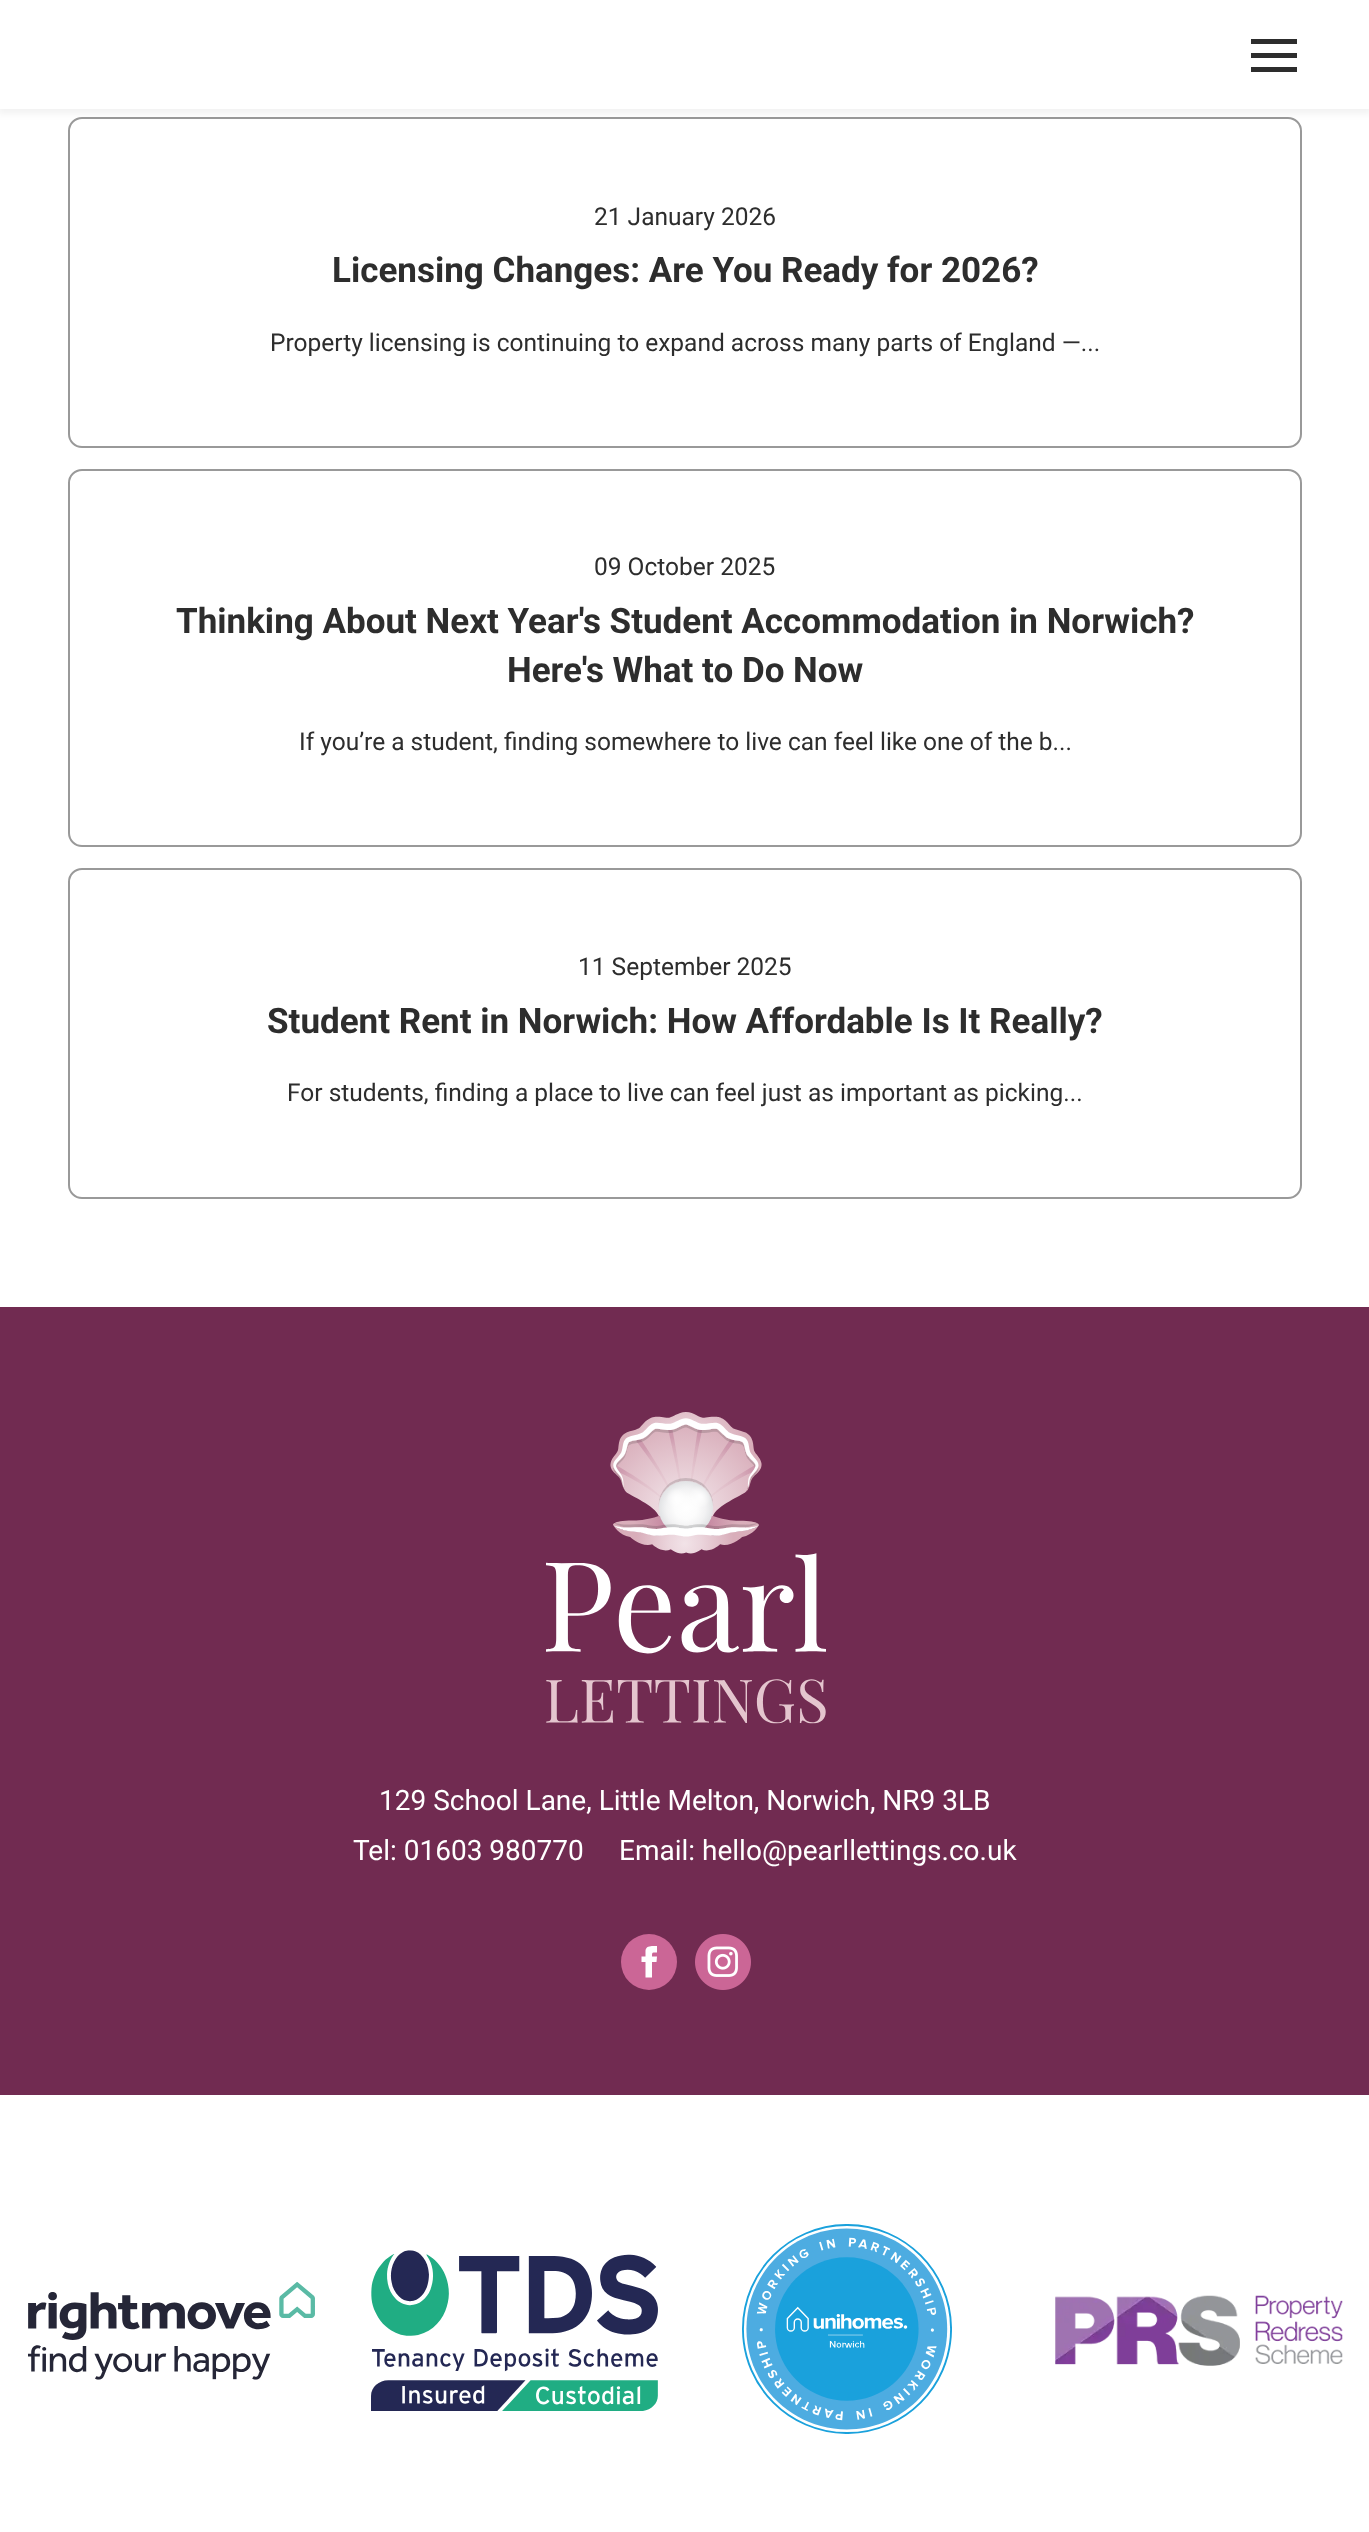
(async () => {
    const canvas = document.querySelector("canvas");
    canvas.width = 1369;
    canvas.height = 2532;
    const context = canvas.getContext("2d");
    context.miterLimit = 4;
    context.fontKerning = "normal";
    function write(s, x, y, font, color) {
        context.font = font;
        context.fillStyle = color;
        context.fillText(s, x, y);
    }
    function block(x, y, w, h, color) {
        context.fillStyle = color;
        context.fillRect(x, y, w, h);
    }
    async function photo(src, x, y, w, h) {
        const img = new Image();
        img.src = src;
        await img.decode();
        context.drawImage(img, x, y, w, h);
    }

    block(0, 0, 1369, 2532, "rgb(255, 255, 255)");
    context.beginPath();
    context.roundRect(69, 118, 1232, 329, 13);
    context.strokeStyle = "rgb(153, 153, 153)";
    context.lineWidth = 2;
    context.stroke();
    context.fillStyle = "rgba(0, 0, 0, 0.05)";
    context.filter = "blur(3.5px)";
    context.beginPath();
    context.rect(-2, 2, 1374, 112);
    context.fill();
    context.filter = "none";
    block(0, 0, 1369, 109, "rgb(255, 255, 255)");
    block(1251, 53, 46, 5, "rgb(45, 45, 45)");
    block(1251, 39, 46, 5, "rgb(45, 45, 45)");
    block(1251, 67, 46, 5, "rgb(45, 45, 45)");
    write("21 January 2026", 594, 225, "24.5px Roboto", "rgb(45, 45, 45)");
    write("Licensing Changes: Are You Ready for 2026?", 332, 282, "bold 35px Roboto", "rgb(45, 45, 45)");
    write("Property licensing is continuing to expand across many parts of England —...", 270, 351, "24.5px Roboto", "rgb(45, 45, 45)");
    context.beginPath();
    context.roundRect(69, 470, 1232, 376, 13);
    context.stroke();
    write("09 October 2025", 594, 575, "24.5px Roboto", "rgb(45, 45, 45)");
    write("Thinking About Next Year's Student Accommodation in Norwich?", 176, 633, "bold 35px Roboto", "rgb(45, 45, 45)");
    write("Here's What to Do Now", 507, 682, "bold 35px Roboto", "rgb(45, 45, 45)");
    write("If you’re a student, finding somewhere to live can feel like one of the b...", 299, 750, "24.5px Roboto", "rgb(45, 45, 45)");
    context.beginPath();
    context.roundRect(69, 869, 1232, 329, 13);
    context.stroke();
    write("11 September 2025", 578, 975, "24.5px Roboto", "rgb(45, 45, 45)");
    write("Student Rent in Norwich: How Affordable Is It Really?", 267, 1033, "bold 35px Roboto", "rgb(45, 45, 45)");
    write("For students, finding a place to live can feel just as important as picking...", 287, 1101, "24.5px Roboto", "rgb(45, 45, 45)");
    block(0, 1307, 1369, 788, "rgb(113, 43, 81)");
    await photo("media/1.png", 546, 1412, 280, 312);
    write("129 School Lane, Little Melton, Norwich, NR9 3LB", 379, 1810, "28px Roboto", "rgb(255, 255, 255)");
    write("Tel: 01603 980770", 353, 1860, "28px Roboto", "rgb(255, 255, 255)");
    write("Email: hello@pearllettings.co.uk", 619, 1860, "28px Roboto", "rgb(255, 255, 255)");
    context.fillStyle = "rgb(203, 102, 150)";
    context.beginPath();
    context.arc(649, 1962, 28, 0, Math.PI * 2);
    context.fill();
    context.fillStyle = "rgb(255, 255, 255)";
    context.beginPath();
    context.moveTo(645.5, 1956.5);
    context.lineTo(641.5, 1956.5);
    context.lineTo(641.5, 1962);
    context.lineTo(645.5, 1962);
    context.lineTo(645.5, 1977.5);
    context.lineTo(652, 1977.5);
    context.lineTo(652, 1962);
    context.lineTo(656.5, 1962);
    context.lineTo(657, 1956.5);
    context.lineTo(652, 1956.5);
    context.bezierCurveTo(652, 1951.5, 652.5, 1952.5, 657, 1952.5);
    context.lineTo(657, 1946);
    context.bezierCurveTo(653, 1946, 646, 1945, 645.5, 1950.5);
    context.closePath();
    context.fill();
    await photo("media/2.png", 695, 1934, 56, 56);
    await photo("media/3.png", 28, 2282, 287, 98);
    await photo("media/4.png", 371, 2250, 287, 161);
    await photo("media/5.png", 742, 2224, 210, 210);
    await photo("media/6.png", 1055, 2295, 288, 71);
})();
